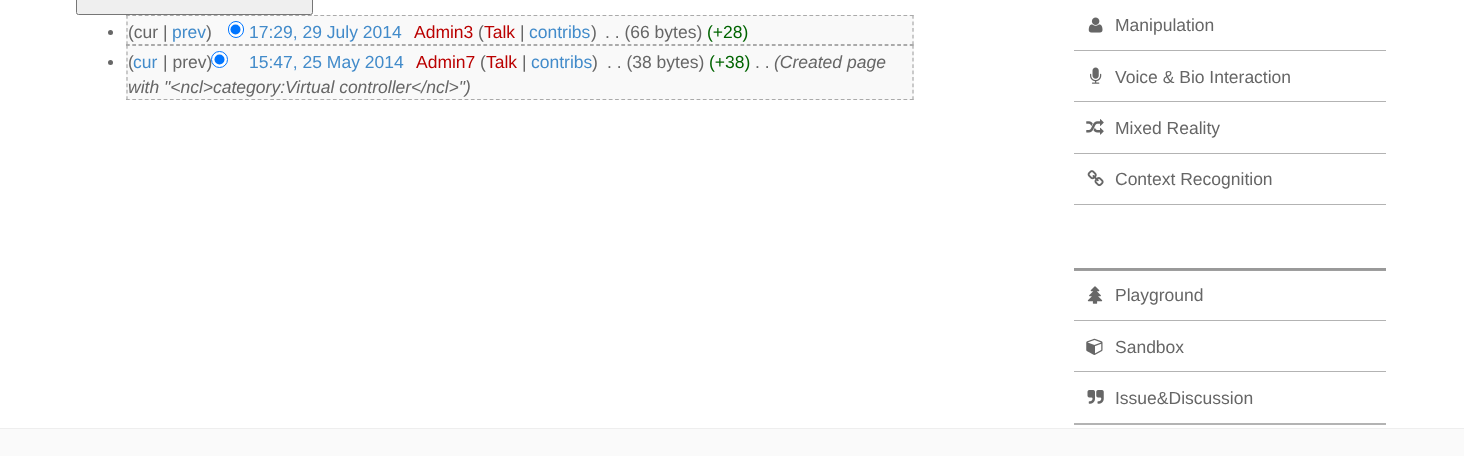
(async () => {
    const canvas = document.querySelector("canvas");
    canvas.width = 1464;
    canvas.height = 456;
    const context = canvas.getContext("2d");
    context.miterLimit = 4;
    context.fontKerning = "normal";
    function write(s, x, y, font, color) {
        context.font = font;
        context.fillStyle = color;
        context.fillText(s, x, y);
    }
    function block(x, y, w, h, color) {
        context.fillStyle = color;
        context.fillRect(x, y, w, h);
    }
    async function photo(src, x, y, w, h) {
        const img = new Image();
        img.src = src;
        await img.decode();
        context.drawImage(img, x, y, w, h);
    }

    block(0, 0, 1464, 456, "rgb(255, 255, 255)");
    block(126, 15, 788, 30, "rgb(249, 249, 249)");
    context.beginPath();
    context.moveTo(126, 15.5);
    context.lineTo(914, 15.5);
    context.strokeStyle = "rgb(170, 170, 170)";
    context.lineWidth = 1.2;
    context.setLineDash([3.75, 2.52]);
    context.stroke();
    context.fillStyle = "rgb(239, 239, 239)";
    context.beginPath();
    context.roundRect(76.5, -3.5, 236, 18, 2);
    context.fill();
    context.strokeStyle = "rgb(118, 118, 118)";
    context.lineWidth = 1;
    context.setLineDash([]);
    context.stroke();
    context.beginPath();
    context.moveTo(913, 15);
    context.lineTo(913, 45);
    context.strokeStyle = "rgb(170, 170, 170)";
    context.lineWidth = 1.2;
    context.setLineDash([3.75, 2.81]);
    context.stroke();
    context.beginPath();
    context.moveTo(126, 44.5);
    context.lineTo(914, 44.5);
    context.setLineDash([3.75, 2.52]);
    context.stroke();
    context.beginPath();
    context.moveTo(127, 15);
    context.lineTo(127, 45);
    context.setLineDash([3.75, 2.81]);
    context.stroke();
    context.fillStyle = "rgb(102, 102, 102)";
    context.beginPath();
    context.arc(110.5, 32.5, 2.5, 0, Math.PI * 2);
    context.fill();
    write("(cur |", 128, 38, "17.5px Liberation Sans", "rgb(102, 102, 102)");
    write("prev", 172, 38, "17.5px Liberation Sans", "rgb(66, 139, 202)");
    write(")", 206, 38, "17.5px Liberation Sans", "rgb(102, 102, 102)");
    context.fillStyle = "rgb(255, 255, 255)";
    context.beginPath();
    context.roundRect(228.5, 21.5, 15, 16, 7.5);
    context.fill();
    context.strokeStyle = "rgb(0, 117, 255)";
    context.lineWidth = 1;
    context.setLineDash([]);
    context.stroke();
    context.fillStyle = "rgb(0, 117, 255)";
    context.beginPath();
    context.arc(235.5, 29.5, 5, 0, Math.PI * 2);
    context.fill();
    write("17:29, 29 July 2014", 249, 38, "17.5px Liberation Sans", "rgb(66, 139, 202)");
    write("Admin3", 414, 38, "17.5px Liberation Sans", "rgb(186, 0, 0)");
    write("(", 478, 38, "17.5px Liberation Sans", "rgb(102, 102, 102)");
    write("Talk", 484, 38, "17.5px Liberation Sans", "rgb(186, 0, 0)");
    write("|", 520, 38, "17.5px Liberation Sans", "rgb(102, 102, 102)");
    write("contribs", 529, 38, "17.5px Liberation Sans", "rgb(66, 139, 202)");
    write(")", 591, 38, "17.5px Liberation Sans", "rgb(102, 102, 102)");
    write(". . (66 bytes)", 605, 38, "17.5px Liberation Sans", "rgb(102, 102, 102)");
    write("(+28)", 707, 38, "17.5px Liberation Sans", "rgb(0, 100, 0)");
    block(126, 45, 788, 55, "rgb(249, 249, 249)");
    context.beginPath();
    context.moveTo(126, 45.5);
    context.lineTo(914, 45.5);
    context.strokeStyle = "rgb(170, 170, 170)";
    context.lineWidth = 1.2;
    context.setLineDash([3.75, 2.52]);
    context.stroke();
    context.beginPath();
    context.moveTo(913, 45);
    context.lineTo(913, 100);
    context.setLineDash([3.75, 2.65]);
    context.stroke();
    context.beginPath();
    context.moveTo(126, 99.5);
    context.lineTo(914, 99.5);
    context.setLineDash([3.75, 2.52]);
    context.stroke();
    context.beginPath();
    context.moveTo(127, 45);
    context.lineTo(127, 100);
    context.setLineDash([3.75, 2.65]);
    context.stroke();
    context.fillStyle = "rgb(102, 102, 102)";
    context.beginPath();
    context.arc(110.5, 62.5, 2.5, 0, Math.PI * 2);
    context.fill();
    write("(", 128, 68, "17.5px Liberation Sans", "rgb(102, 102, 102)");
    write("cur", 133, 68, "17.5px Liberation Sans", "rgb(66, 139, 202)");
    write("| prev)", 163, 68, "17.5px Liberation Sans", "rgb(102, 102, 102)");
    context.fillStyle = "rgb(255, 255, 255)";
    context.beginPath();
    context.arc(219.5, 59.5, 8, 0, Math.PI * 2);
    context.fill();
    context.strokeStyle = "rgb(0, 117, 255)";
    context.lineWidth = 1;
    context.setLineDash([]);
    context.stroke();
    context.fillStyle = "rgb(0, 117, 255)";
    context.beginPath();
    context.arc(219.5, 59.5, 5, 0, Math.PI * 2);
    context.fill();
    write("15:47, 25 May 2014", 249, 68, "17.5px Liberation Sans", "rgb(66, 139, 202)");
    write("Admin7", 416, 68, "17.5px Liberation Sans", "rgb(186, 0, 0)");
    write("(", 480, 68, "17.5px Liberation Sans", "rgb(102, 102, 102)");
    write("Talk", 486, 68, "17.5px Liberation Sans", "rgb(186, 0, 0)");
    write("|", 522, 68, "17.5px Liberation Sans", "rgb(102, 102, 102)");
    write("contribs", 531, 68, "17.5px Liberation Sans", "rgb(66, 139, 202)");
    write(")", 592, 68, "17.5px Liberation Sans", "rgb(102, 102, 102)");
    write(". . (38 bytes)", 607, 68, "17.5px Liberation Sans", "rgb(102, 102, 102)");
    write("(+38)", 709, 68, "17.5px Liberation Sans", "rgb(0, 100, 0)");
    write("(Created page", 774, 68, "italic 17.5px Liberation Sans", "rgb(102, 102, 102)");
    write(". .", 755, 68, "17.5px Liberation Sans", "rgb(102, 102, 102)");
    write("with \"<ncl>category:Virtual controller<\/ncl>\")", 128, 93, "italic 17.5px Liberation Sans", "rgb(102, 102, 102)");
    block(1074, 423, 312, 2, "rgb(179, 179, 179)");
    block(1074, 50, 312, 1, "rgb(179, 179, 179)");
    await photo("media/1.png", 1088, 17, 15, 16);
    write("Manipulation", 1115, 31, "17.5px Liberation Sans", "rgb(102, 102, 102)");
    block(1074, 101, 312, 1, "rgb(179, 179, 179)");
    await photo("media/2.png", 1090, 67, 12, 17);
    write("Voice & Bio Interaction", 1115, 83, "17.5px Liberation Sans", "rgb(102, 102, 102)");
    block(1074, 153, 312, 1, "rgb(179, 179, 179)");
    await photo("media/3.png", 1086, 119, 18, 16);
    write("Mixed Reality", 1115, 134, "17.5px Liberation Sans", "rgb(102, 102, 102)");
    block(1074, 204, 312, 1, "rgb(179, 179, 179)");
    await photo("media/4.png", 1087, 170, 17, 17);
    write("Context Recognition", 1115, 185, "17.5px Liberation Sans", "rgb(102, 102, 102)");
    block(1074, 268, 312, 2, "rgb(153, 153, 153)");
    block(1074, 270, 312, 1, "rgb(158, 158, 158)");
    block(1074, 320, 312, 1, "rgb(179, 179, 179)");
    await photo("media/5.png", 1087, 286, 16, 18);
    write("Playground", 1115, 301, "17.5px Liberation Sans", "rgb(102, 102, 102)");
    block(1074, 371, 312, 1, "rgb(179, 179, 179)");
    await photo("media/6.png", 1086, 338, 17, 17);
    write("Sandbox", 1115, 353, "17.5px Liberation Sans", "rgb(102, 102, 102)");
    await photo("media/7.png", 1087, 390, 17, 14);
    write("Issue&Discussion", 1115, 404, "17.5px Liberation Sans", "rgb(102, 102, 102)");
    block(0, 429, 1464, 27, "rgb(250, 250, 250)");
    block(0, 428, 1464, 1, "rgb(238, 238, 238)");
})();
